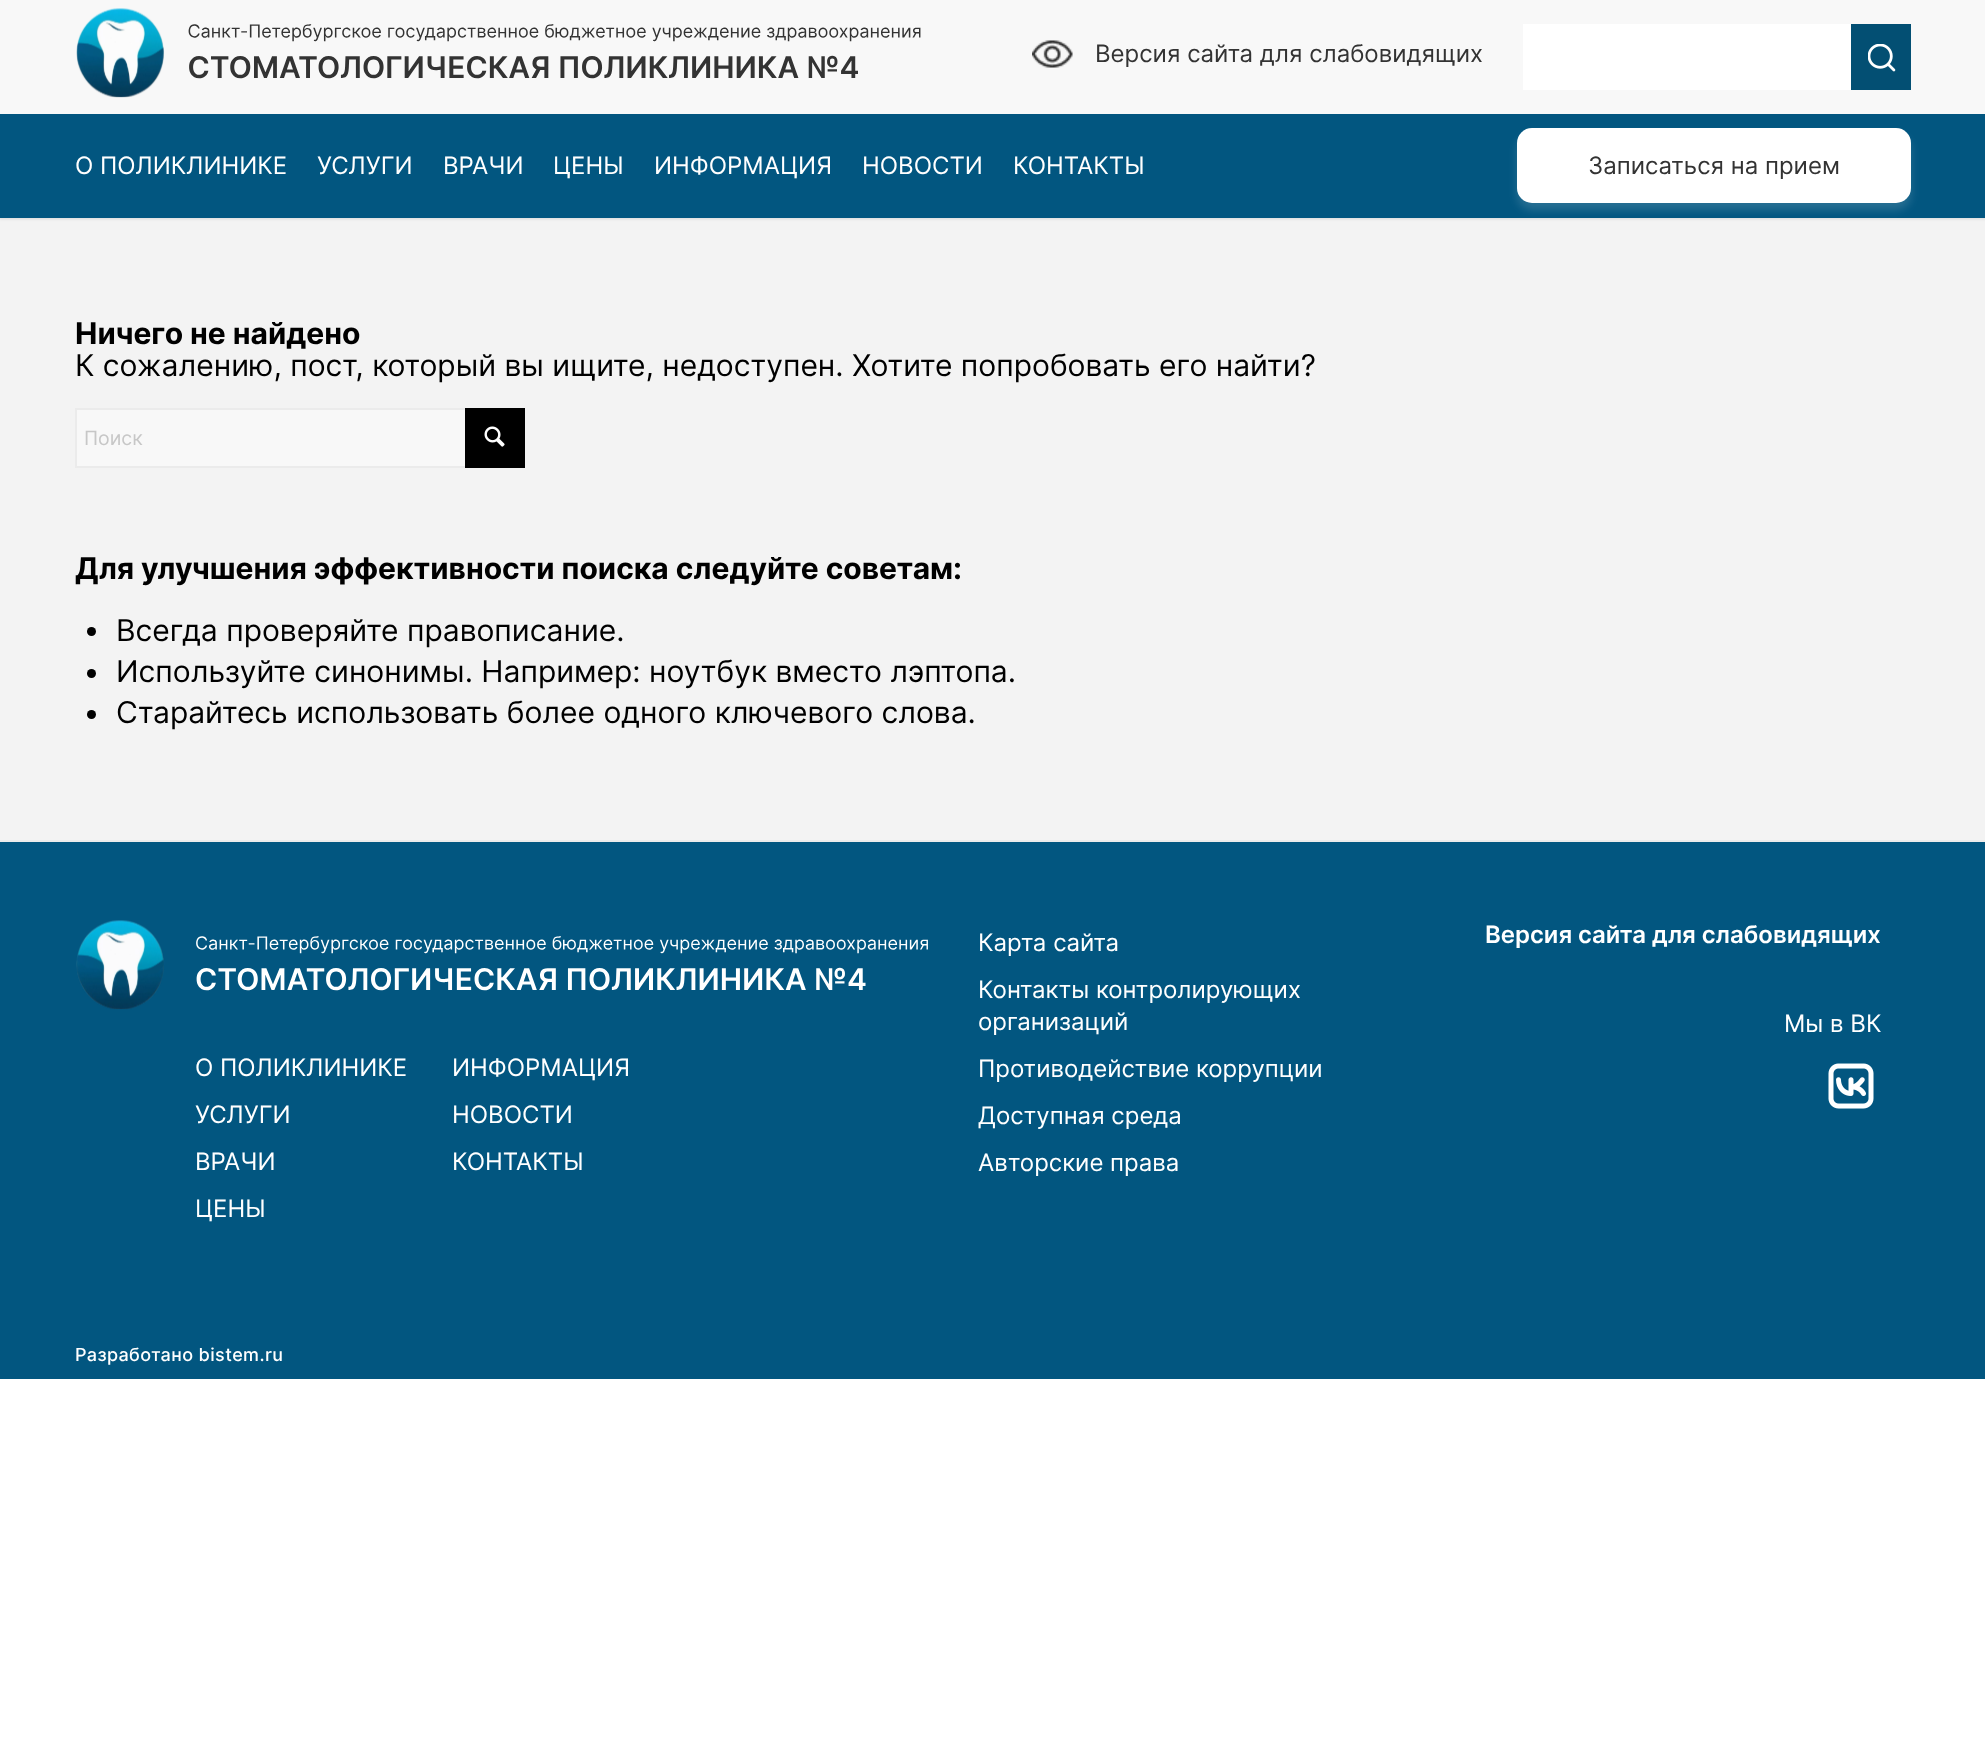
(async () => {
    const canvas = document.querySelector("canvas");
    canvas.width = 1985;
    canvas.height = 1742;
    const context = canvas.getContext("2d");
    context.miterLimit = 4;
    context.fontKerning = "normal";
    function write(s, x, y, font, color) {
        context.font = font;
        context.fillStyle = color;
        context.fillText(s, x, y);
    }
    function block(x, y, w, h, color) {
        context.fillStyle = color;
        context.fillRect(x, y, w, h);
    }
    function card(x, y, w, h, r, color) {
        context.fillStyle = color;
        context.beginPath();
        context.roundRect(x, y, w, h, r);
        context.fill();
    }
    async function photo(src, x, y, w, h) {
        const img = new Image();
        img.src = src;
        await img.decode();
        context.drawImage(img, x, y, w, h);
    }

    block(0, 0, 1985, 1742, "rgb(255, 255, 255)");
    block(0, 218, 1985, 622, "rgb(243, 243, 243)");
    context.fillStyle = "rgba(0, 0, 0, 0.1)";
    context.filter = "blur(1.5px)";
    context.beginPath();
    context.rect(-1, -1, 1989, 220);
    context.fill();
    context.filter = "none";
    block(0, 0, 1985, 114, "rgb(248, 248, 248)");
    await photo("media/1.png", 76, 8, 845, 90);
    await photo("media/2.png", 1032, 40, 41, 28);
    write("Версия сайта для слабовидящих", 1095, 62, "24px Inter", "rgb(51, 51, 51)");
    block(1523, 24, 328, 66, "rgb(255, 255, 255)");
    block(1851, 24, 60, 66, "rgb(3, 79, 115)");
    await photo("media/3.png", 1868, 44, 28, 28);
    block(0, 114, 1985, 104, "rgb(2, 86, 128)");
    write("О ПОЛИКЛИНИКЕ", 75, 174, "24px Inter", "rgb(255, 255, 255)");
    write("УСЛУГИ", 317, 174, "24px Inter", "rgb(255, 255, 255)");
    write("ВРАЧИ", 443, 174, "24px Inter", "rgb(255, 255, 255)");
    write("ЦЕНЫ", 553, 174, "24px Inter", "rgb(255, 255, 255)");
    write("ИНФОРМАЦИЯ", 654, 174, "24px Inter", "rgb(255, 255, 255)");
    write("НОВОСТИ", 862, 174, "24px Inter", "rgb(255, 255, 255)");
    write("КОНТАКТЫ", 1013, 174, "24px Inter", "rgb(255, 255, 255)");
    context.fillStyle = "rgba(255, 255, 255, 0.15)";
    context.filter = "blur(5px)";
    context.beginPath();
    context.roundRect(1517, 135, 394, 75, 15);
    context.fill();
    context.filter = "none";
    card(1517, 128, 394, 75, 15, "rgb(255, 255, 255)");
    write("Записаться на прием", 1588, 174, "24px Inter", "rgb(51, 51, 51)");
    write("Ничего не найдено", 75, 344, "bold 30px Inter", "rgb(0, 0, 0)");
    write("К сожалению, пост, который вы ищите, недоступен. Хотите попробовать его найти?", 75, 376, "30px Inter", "rgb(0, 0, 0)");
    block(77, 410, 388, 56, "rgb(248, 248, 248)");
    context.strokeStyle = "rgb(235, 235, 235)";
    context.lineWidth = 2;
    context.strokeRect(76, 409, 448, 58);
    write("Поиск", 84, 445, "19.5px Inter", "rgb(199, 199, 199)");
    block(465, 408, 60, 60, "rgb(0, 0, 0)");
    await photo("media/4.png", 484, 426, 21, 21);
    write("Для улучшения эффективности поиска следуйте советам:", 75, 579, "bold 30px Inter", "rgb(0, 0, 0)");
    context.beginPath();
    context.arc(91.5, 631.5, 4.5, 0, Math.PI * 2);
    context.fill();
    write("Всегда проверяйте правописание.", 116, 641, "30px Inter", "rgb(0, 0, 0)");
    context.beginPath();
    context.arc(91.5, 673.5, 4.5, 0, Math.PI * 2);
    context.fill();
    write("Используйте синонимы. Например: ноутбук вместо лэптопа.", 116, 682, "30px Inter", "rgb(0, 0, 0)");
    context.beginPath();
    context.arc(91.5, 714.5, 4.5, 0, Math.PI * 2);
    context.fill();
    write("Старайтесь использовать более одного ключевого слова.", 116, 723, "30px Inter", "rgb(0, 0, 0)");
    block(0, 842, 1985, 537, "rgb(2, 86, 128)");
    block(0, 840, 1985, 2, "rgb(235, 235, 235)");
    await photo("media/5.png", 76, 920, 852, 90);
    write("О ПОЛИКЛИНИКЕ", 195, 1076, "24px Inter", "rgb(255, 255, 255)");
    write("ИНФОРМАЦИЯ", 452, 1076, "24px Inter", "rgb(255, 255, 255)");
    write("УСЛУГИ", 195, 1123, "24px Inter", "rgb(255, 255, 255)");
    write("НОВОСТИ", 452, 1123, "24px Inter", "rgb(255, 255, 255)");
    write("ВРАЧИ", 195, 1170, "24px Inter", "rgb(255, 255, 255)");
    write("КОНТАКТЫ", 452, 1170, "24px Inter", "rgb(255, 255, 255)");
    write("ЦЕНЫ", 195, 1217, "24px Inter", "rgb(255, 255, 255)");
    write("Карта сайта", 978, 951, "24px Inter", "rgb(255, 255, 255)");
    write("Контакты контролирующих", 978, 998, "24px Inter", "rgb(255, 255, 255)");
    write("организаций", 978, 1030, "24px Inter", "rgb(255, 255, 255)");
    write("Противодействие коррупции", 978, 1077, "24px Inter", "rgb(255, 255, 255)");
    write("Доступная среда", 978, 1124, "24px Inter", "rgb(255, 255, 255)");
    write("Авторские права", 978, 1171, "24px Inter", "rgb(255, 255, 255)");
    write("Версия сайта для слабовидящих", 1485, 943, "600 24px Inter", "rgb(255, 255, 255)");
    write("Мы в ВК", 1784, 1032, "24px Inter", "rgb(255, 255, 255)");
    await photo("media/6.png", 1828, 1063, 46, 46);
    context.letterSpacing = "0.4px";
    write("Разработано bistem.ru", 75, 1361, "500 18px Inter", "rgb(255, 255, 255)");
})();
